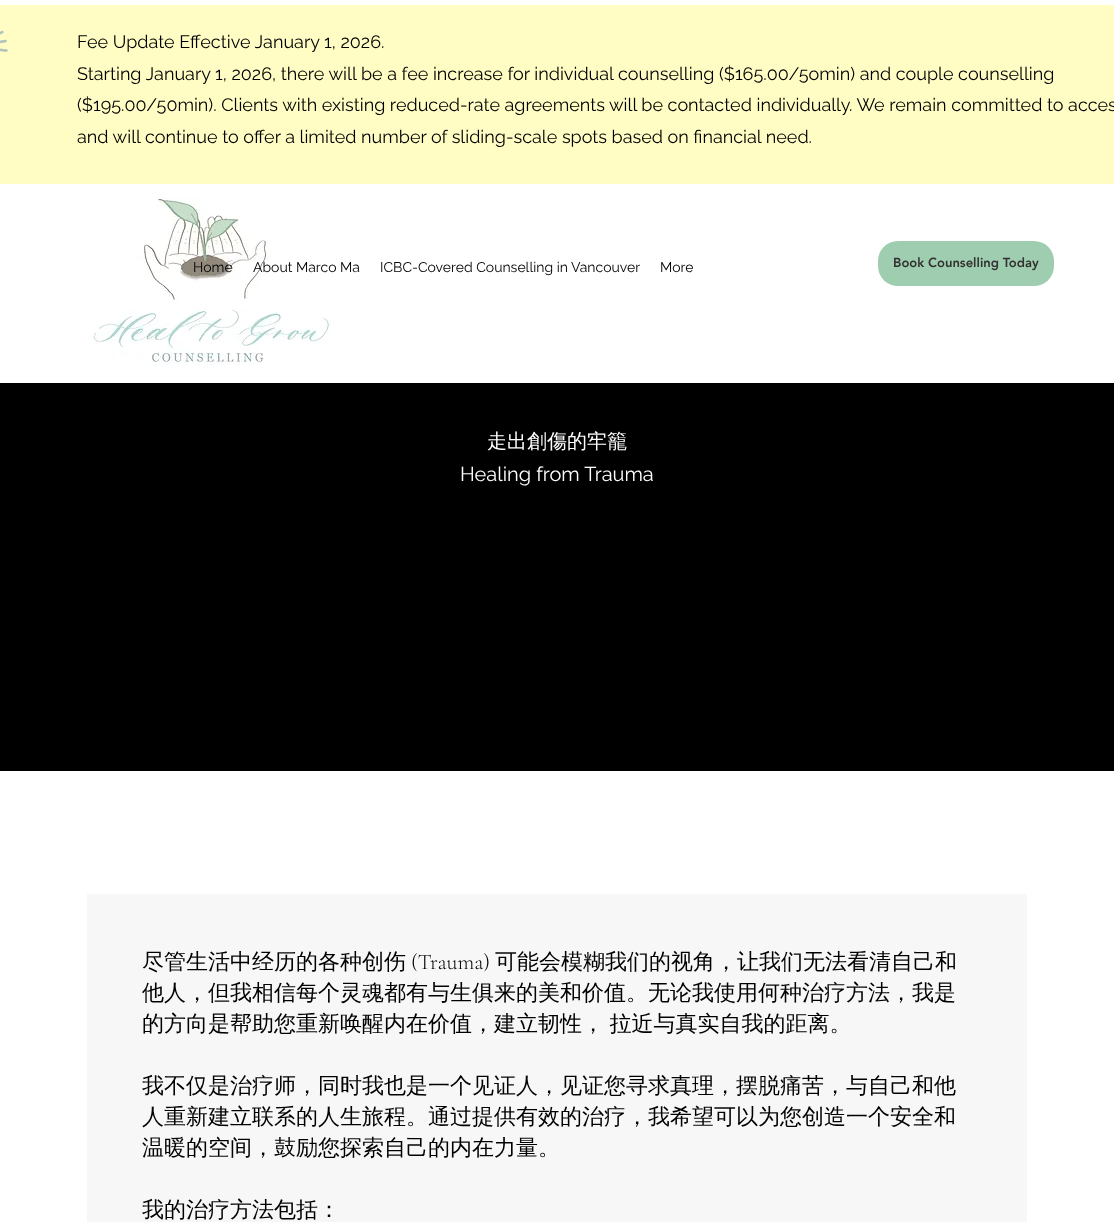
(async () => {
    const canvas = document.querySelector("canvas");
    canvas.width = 1114;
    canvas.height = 1222;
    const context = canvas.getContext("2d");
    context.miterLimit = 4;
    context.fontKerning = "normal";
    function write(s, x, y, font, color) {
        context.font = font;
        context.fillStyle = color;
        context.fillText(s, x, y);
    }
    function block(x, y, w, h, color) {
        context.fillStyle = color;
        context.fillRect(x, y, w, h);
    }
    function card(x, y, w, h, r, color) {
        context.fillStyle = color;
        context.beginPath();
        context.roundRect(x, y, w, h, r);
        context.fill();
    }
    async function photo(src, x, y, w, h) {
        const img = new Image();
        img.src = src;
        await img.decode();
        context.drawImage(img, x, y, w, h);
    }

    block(0, 0, 1114, 1222, "rgb(255, 255, 255)");
    block(0, 5, 1114, 179, "rgb(255, 253, 196)");
    await photo("media/1.png", 0, 30, 8, 22);
    write("Fee Update Effective January 1, 2026.", 77, 48, "18px Raleway", "rgb(0, 0, 0)");
    write("Starting January 1, 2026, there will be a fee increase for individual counselling ($165.00/5omin) and couple counselling", 77, 80, "18px Raleway", "rgb(0, 0, 0)");
    write("($195.00/50min). Clients with existing reduced-rate agreements will be contacted individually. We remain committed to acces", 77, 111, "18px Raleway", "rgb(0, 0, 0)");
    write("and will continue to offer a limited number of sliding-scale spots based on financial need.", 77, 143, "18px Raleway", "rgb(0, 0, 0)");
    await photo("media/2.png", 92, 197, 239, 168);
    write("Home", 193, 272, "14px Raleway", "rgb(0, 0, 0)");
    write("About Marco Ma", 253, 272, "14px Raleway", "rgb(0, 0, 0)");
    write("ICBC-Covered Counselling in Vancouver", 380, 272, "14px Raleway", "rgb(0, 0, 0)");
    write("More", 660, 272, "14px Raleway", "rgb(0, 0, 0)");
    card(878, 241, 176, 45, 20, "rgb(159, 205, 175)");
    write("Book Counselling Today", 893, 267, "900 13px 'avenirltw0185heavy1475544'", "rgb(50, 50, 50)");
    block(0, 383, 1114, 388, "rgb(0, 0, 0)");
    write("走出創傷的牢籠", 487, 448, "500 20px WenQuanYi Zen Hei", "rgb(255, 255, 255)");
    write("Healing from Trauma", 460, 481, "20px Raleway", "rgb(255, 255, 255)");
    block(87, 894, 940, 328, "rgb(247, 247, 247)");
    write("尽管生活中经历的各种创伤", 142, 969, "500 22px WenQuanYi Zen Hei", "rgb(0, 0, 0)");
    write("(Trauma)", 411, 969, "300 22px Cormorant Garamond", "rgb(0, 0, 0)");
    write("可能会模糊我们的视角，让我们无法看清自己和", 495, 969, "500 22px WenQuanYi Zen Hei", "rgb(0, 0, 0)");
    write("他人，但我相信每个灵魂都有与生俱来的美和价值。无论我使用何种治疗方法，我是", 142, 1000, "500 22px WenQuanYi Zen Hei", "rgb(0, 0, 0)");
    context.wordSpacing = "-1px";
    write("的方向是帮助您重新唤醒内在价值，建立韧性， 拉近与真实自我的距离。", 142, 1031, "500 22px WenQuanYi Zen Hei", "rgb(0, 0, 0)");
    context.wordSpacing = "0px";
    write("我不仅是治疗师，同时我也是一个见证人，见证您寻求真理，摆脱痛苦，与自己和他", 142, 1093, "500 22px WenQuanYi Zen Hei", "rgb(0, 0, 0)");
    write("人重新建立联系的人生旅程。通过提供有效的治疗，我希望可以为您创造一个安全和", 142, 1124, "500 22px WenQuanYi Zen Hei", "rgb(0, 0, 0)");
    write("温暖的空间，鼓励您探索自己的内在力量。", 142, 1155, "500 22px WenQuanYi Zen Hei", "rgb(0, 0, 0)");
    write("我的治疗方法包括：", 142, 1217, "500 22px WenQuanYi Zen Hei", "rgb(0, 0, 0)");
})();
